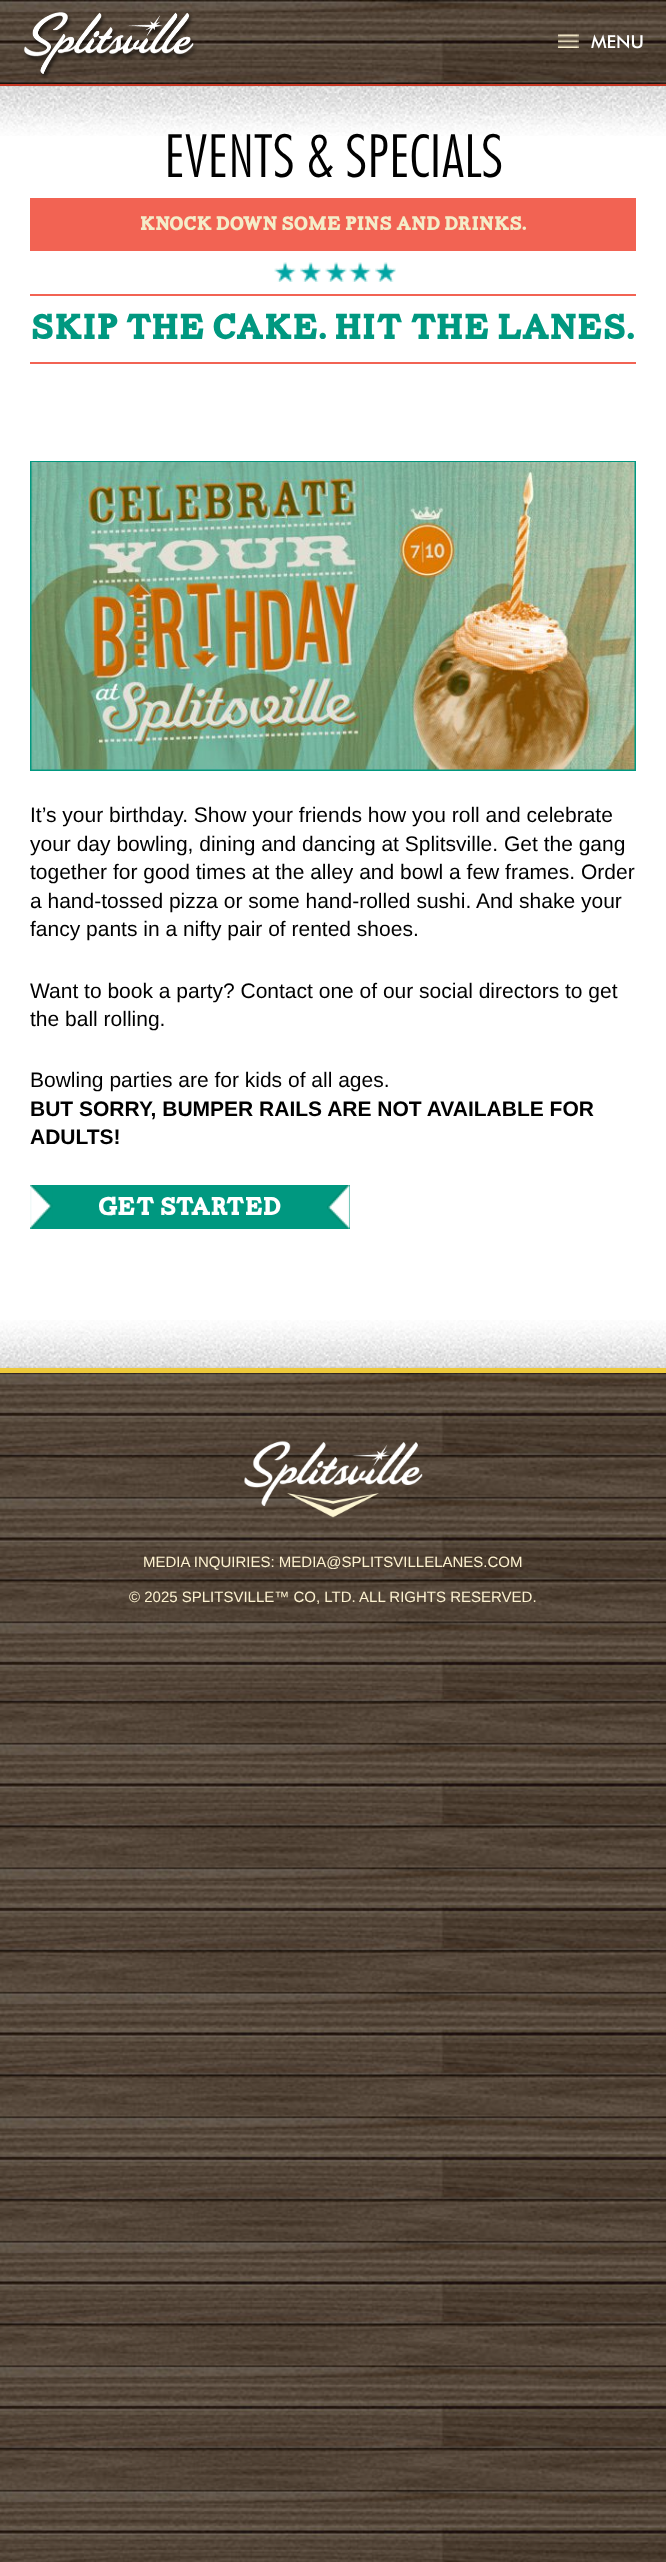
(async () => {
    const canvas = document.querySelector("canvas");
    canvas.width = 666;
    canvas.height = 2562;
    const context = canvas.getContext("2d");
    context.miterLimit = 4;
    context.fontKerning = "normal";
    function write(s, x, y, font, color) {
        context.font = font;
        context.fillStyle = color;
        context.fillText(s, x, y);
    }
    function block(x, y, w, h, color) {
        context.fillStyle = color;
        context.fillRect(x, y, w, h);
    }
    async function photo(src, x, y, w, h) {
        const img = new Image();
        img.src = src;
        await img.decode();
        context.drawImage(img, x, y, w, h);
    }

    block(0, 0, 666, 2562, "rgb(255, 255, 255)");
    await photo("media/1.png", 0, 1690, 666, 872);
    await photo("media/2.png", 0, 0, 666, 84);
    await photo("media/3.png", 24, 12, 173, 67);
    await photo("media/4.png", 558, 34, 21, 14);
    write("MENU", 591, 48, "500 18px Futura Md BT", "rgb(255, 255, 255)");
    block(0, 84, 666, 2, "rgb(196, 56, 37)");
    write("EVENTS & SPECIALS", 164, 177, "300 60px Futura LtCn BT", "rgb(0, 0, 0)");
    await photo("media/5.png", 0, 86, 666, 50);
    block(30, 198, 606, 53, "rgb(242, 99, 83)");
    write("KNOCK DOWN SOME PINS AND DRINKS.", 140, 230, "19.5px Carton", "rgb(244, 236, 200)");
    block(30, 294, 606, 2, "rgb(242, 99, 83)");
    await photo("media/6.png", 274, 262, 22, 20);
    await photo("media/7.png", 300, 262, 21, 20);
    await photo("media/6.png", 325, 262, 22, 20);
    await photo("media/6.png", 349, 262, 22, 20);
    await photo("media/7.png", 375, 262, 21, 20);
    block(30, 362, 606, 2, "rgb(242, 99, 83)");
    write("SKIP THE CAKE. HIT THE LANES.", 31, 339, "36px Carton", "rgb(0, 152, 128)");
    context.strokeStyle = "rgb(0, 152, 128)";
    context.lineWidth = 2;
    context.strokeRect(31, 462, 604, 308);
    await photo("media/8.png", 31, 462, 604, 308);
    write("It’s your birthday. Show your friends how you roll and celebrate", 30, 822, "21px Liberation Sans", "rgb(0, 0, 0)");
    write("your day bowling, dining and dancing at Splitsville. Get the gang", 30, 851, "21px Liberation Sans", "rgb(0, 0, 0)");
    write("together for good times at the alley and bowl a few frames. Order", 30, 879, "21px Liberation Sans", "rgb(0, 0, 0)");
    write("a hand-tossed pizza or some hand-rolled sushi. And shake your", 30, 908, "21px Liberation Sans", "rgb(0, 0, 0)");
    write("fancy pants in a nifty pair of rented shoes.", 30, 936, "21px Liberation Sans", "rgb(0, 0, 0)");
    write("Want to book a party? Contact one of our social directors to get", 30, 998, "21px Liberation Sans", "rgb(0, 0, 0)");
    write("the ball rolling.", 30, 1026, "21px Liberation Sans", "rgb(0, 0, 0)");
    write("Bowling parties are for kids of all ages.", 30, 1087, "21px Liberation Sans", "rgb(0, 0, 0)");
    write("BUT SORRY, BUMPER RAILS ARE NOT AVAILABLE FOR", 30, 1116, "bold 21px Liberation Sans", "rgb(0, 0, 0)");
    write("ADULTS!", 30, 1144, "bold 21px Liberation Sans", "rgb(0, 0, 0)");
    block(30, 1185, 320, 44, "rgb(0, 152, 128)");
    await photo("media/9.png", 30, 1185, 23, 44);
    write("GET STARTED", 98, 1215, "25.5px Carton", "rgb(255, 255, 255)");
    await photo("media/10.png", 327, 1185, 23, 44);
    await photo("media/11.png", 0, 1320, 666, 48);
    await photo("media/12.png", 0, 1373, 666, 318);
    block(0, 1368, 666, 5, "rgb(237, 201, 58)");
    await photo("media/13.png", 244, 1441, 179, 77);
    write("MEDIA INQUIRIES: MEDIA@SPLITSVILLELANES.COM", 143, 1567, "15px Liberation Sans", "rgb(253, 242, 208)");
    write("© 2025 SPLITSVILLE™ CO, LTD. ALL RIGHTS RESERVED.", 129, 1602, "15px Liberation Sans", "rgb(253, 242, 208)");
})();
